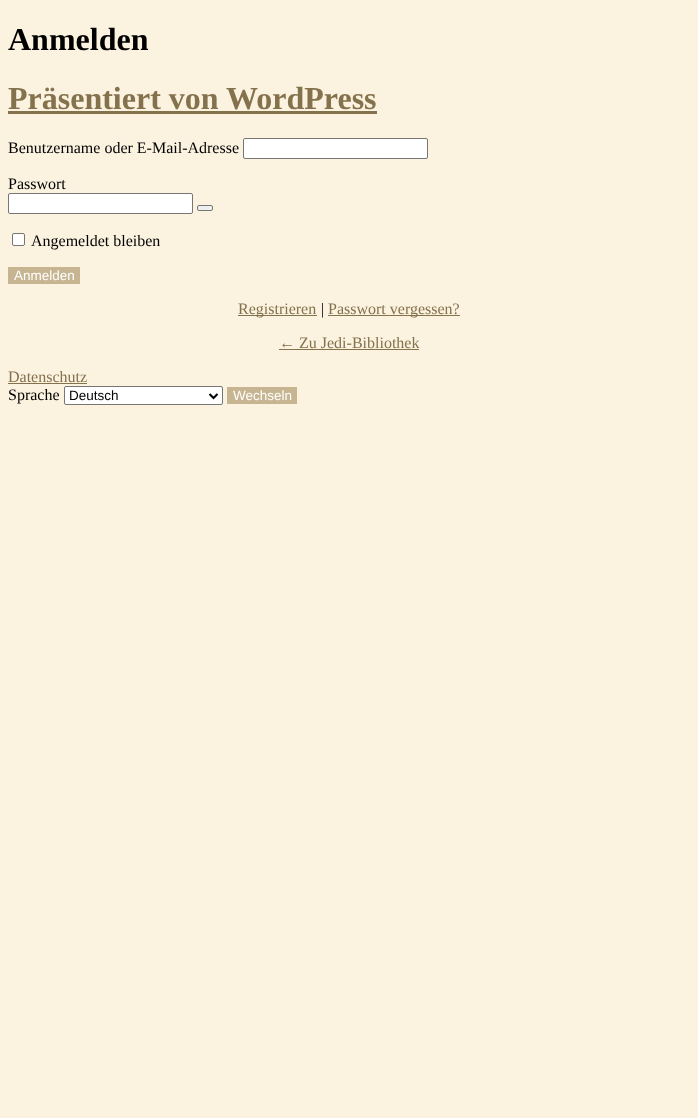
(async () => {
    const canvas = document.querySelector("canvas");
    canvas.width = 698;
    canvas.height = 1118;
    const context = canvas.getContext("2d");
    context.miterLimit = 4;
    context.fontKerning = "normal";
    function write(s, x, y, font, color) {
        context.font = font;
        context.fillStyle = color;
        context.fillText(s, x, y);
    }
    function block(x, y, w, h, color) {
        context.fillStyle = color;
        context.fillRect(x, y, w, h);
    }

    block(0, 0, 698, 1118, "rgb(251, 242, 223)");
    write("Anmelden", 8, 50, "bold 32px Liberation Serif", "rgb(0, 0, 0)");
    write("Präsentiert von WordPress", 8, 109, "bold 32px Liberation Serif", "rgb(132, 114, 77)");
    block(8, 111, 369, 3, "rgb(132, 114, 77)");
    write("Benutzername oder E-Mail-Adresse", 8, 153, "16px Liberation Serif", "rgb(0, 0, 0)");
    context.fillStyle = "rgb(255, 255, 255)";
    context.beginPath();
    context.roundRect(243.5, 138.5, 184, 20, 1.5);
    context.fill();
    context.strokeStyle = "rgb(118, 118, 118)";
    context.stroke();
    write("Passwort", 8, 189, "16px Liberation Serif", "rgb(0, 0, 0)");
    context.fillStyle = "rgb(255, 255, 255)";
    context.beginPath();
    context.roundRect(8.5, 193.5, 184, 20, 1.5);
    context.fill();
    context.stroke();
    context.fillStyle = "rgb(239, 239, 239)";
    context.beginPath();
    context.roundRect(197.5, 205.5, 15, 5, 1.5);
    context.fill();
    context.stroke();
    context.fillStyle = "rgb(255, 255, 255)";
    context.beginPath();
    context.roundRect(12.5, 233.5, 12, 12, 1.5);
    context.fill();
    context.stroke();
    write("Angemeldet bleiben", 31, 246, "16px Liberation Serif", "rgb(0, 0, 0)");
    block(8, 267, 72, 17, "rgb(199, 180, 145)");
    write("Anmelden", 14, 280, "13.5px Liberation Sans", "rgb(255, 255, 255)");
    block(238, 315, 79, 1, "rgb(132, 114, 77)");
    write("Registrieren", 238, 314, "16px Liberation Serif", "rgb(132, 114, 77)");
    write("|", 321, 314, "16px Liberation Serif", "rgb(0, 0, 0)");
    block(328, 315, 132, 1, "rgb(132, 114, 77)");
    write("Passwort vergessen?", 328, 314, "16px Liberation Serif", "rgb(132, 114, 77)");
    write("← Zu Jedi-Bibliothek", 279, 348, "16px Liberation Serif", "rgb(132, 114, 77)");
    block(279, 349, 140, 1, "rgb(132, 114, 77)");
    write("Datenschutz", 8, 382, "16px Liberation Serif", "rgb(132, 114, 77)");
    block(8, 383, 79, 1, "rgb(132, 114, 77)");
    write("Sprache", 8, 400, "16px Liberation Serif", "rgb(0, 0, 0)");
    context.fillStyle = "rgb(255, 255, 255)";
    context.beginPath();
    context.roundRect(64.5, 386.5, 158, 18, 1.5);
    context.fill();
    context.stroke();
    context.beginPath();
    context.moveTo(209.5, 394);
    context.lineTo(213.5, 398);
    context.lineTo(217.5, 394);
    context.strokeStyle = "rgb(0, 0, 0)";
    context.lineWidth = 2;
    context.stroke();
    write("Deutsch", 69, 400, "13.5px Liberation Sans", "rgb(0, 0, 0)");
    block(227, 387, 70, 17, "rgb(199, 180, 145)");
    write("Wechseln", 233, 400, "13.5px Liberation Sans", "rgb(255, 255, 255)");
})();
